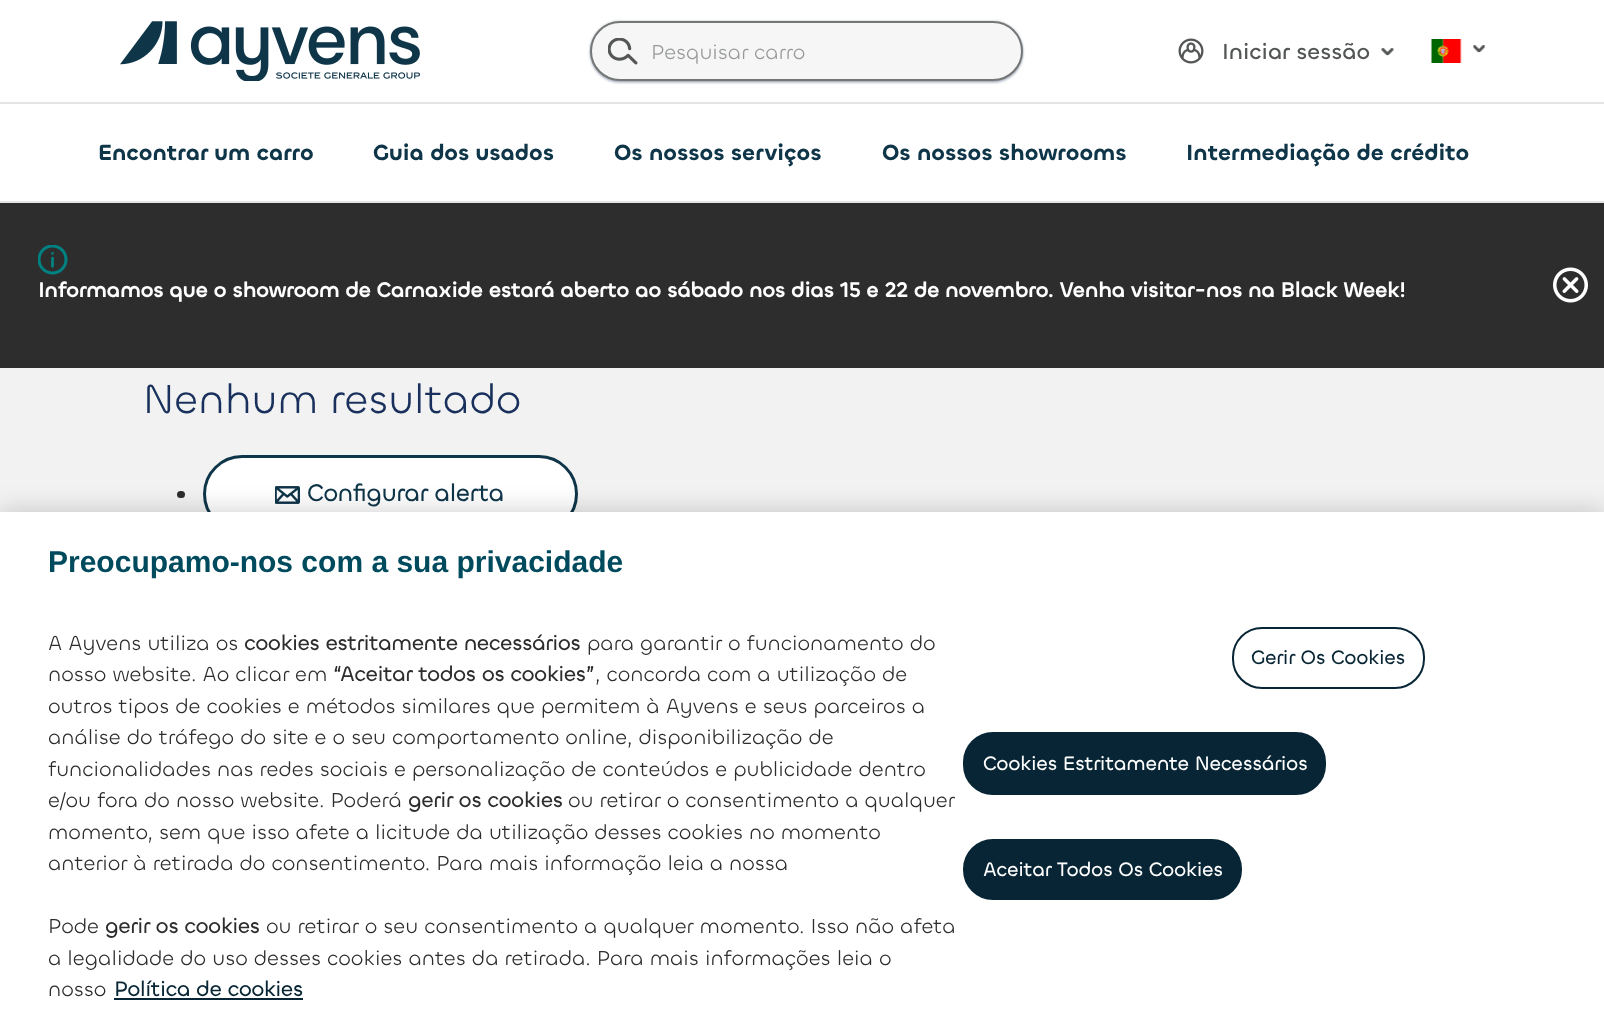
(async () => {
    const canvas = document.querySelector("canvas");
    canvas.width = 1604;
    canvas.height = 1020;
    const context = canvas.getContext("2d");
    context.miterLimit = 4;
    context.fontKerning = "normal";
    function write(s, x, y, font, color) {
        context.font = font;
        context.fillStyle = color;
        context.fillText(s, x, y);
    }
    function block(x, y, w, h, color) {
        context.fillStyle = color;
        context.fillRect(x, y, w, h);
    }
    function card(x, y, w, h, r, color) {
        context.fillStyle = color;
        context.beginPath();
        context.roundRect(x, y, w, h, r);
        context.fill();
    }
    async function photo(src, x, y, w, h) {
        const img = new Image();
        img.src = src;
        await img.decode();
        context.drawImage(img, x, y, w, h);
    }

    block(0, 0, 1604, 1020, "rgb(242, 242, 242)");
    block(0, 0, 1604, 201, "rgb(255, 255, 255)");
    await photo("media/1.png", 120, 21, 300, 60);
    context.fillStyle = "rgba(9, 30, 66, 0.3)";
    context.filter = "blur(1px)";
    context.beginPath();
    context.roundRect(590, 21, 433, 60, 30);
    context.fill();
    context.filter = "none";
    context.fillStyle = "rgba(9, 30, 66, 0.25)";
    context.filter = "blur(1px)";
    context.beginPath();
    context.roundRect(590, 23, 433, 60, 30);
    context.fill();
    context.filter = "none";
    context.fillStyle = "rgb(246, 246, 246)";
    context.beginPath();
    context.roundRect(591, 22, 431, 58, 29);
    context.fill();
    context.strokeStyle = "rgb(117, 119, 119)";
    context.lineWidth = 2;
    context.stroke();
    await photo("media/2.png", 608, 38, 30, 27);
    write("Pesquisar carro", 651, 59, "21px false", "rgb(152, 154, 154)");
    await photo("media/3.png", 1178, 38, 26, 26);
    write("Iniciar sessão", 1222, 59, "500 22.5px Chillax", "rgb(84, 86, 86)");
    await photo("media/4.png", 1381, 48, 13, 8);
    await photo("media/5.png", 1431, 39, 31, 24);
    await photo("media/6.png", 1473, 45, 13, 8);
    block(0, 102, 1604, 2, "rgb(226, 228, 229)");
    block(0, 201, 1604, 2, "rgb(226, 228, 229)");
    write("Encontrar um carro", 98, 160, "600 22.5px Chillax", "rgb(15, 53, 73)");
    write("Guia dos usados", 373, 160, "600 22.5px Chillax", "rgb(15, 53, 73)");
    write("Os nossos serviços", 614, 160, "600 22.5px Chillax", "rgb(15, 53, 73)");
    write("Os nossos showrooms", 882, 160, "600 22.5px Chillax", "rgb(15, 53, 73)");
    write("Intermediação de crédito", 1186, 160, "600 22.5px Chillax", "rgb(15, 53, 73)");
    block(0, 203, 1604, 165, "rgb(45, 45, 45)");
    await photo("media/7.png", 38, 245, 30, 30);
    write("Informamos que o showroom de Carnaxide estará aberto ao sábado nos dias 15 e 22 de novembro. Venha visitar-nos na Black Week!", 38, 297, "bold 21px Chillax", "rgb(255, 255, 255)");
    await photo("media/8.png", 1553, 267, 35, 36);
    write("Nenhum resultado", 143, 413, "42px false", "rgb(24, 48, 91)");
    card(177, 491, 8, 7, 3.5, "rgb(45, 45, 45)");
    context.fillStyle = "rgb(255, 255, 255)";
    context.beginPath();
    context.roundRect(204.5, 456.5, 372, 75, 37.5);
    context.fill();
    context.strokeStyle = "rgb(15, 53, 73)";
    context.lineWidth = 3;
    context.stroke();
    await photo("media/9.png", 275, 486, 25, 18);
    write("Configurar alerta", 307, 501, "bold 24px false", "rgb(15, 53, 73)");
    context.fillStyle = "rgba(0, 0, 0, 0.2)";
    context.filter = "blur(13.5px)";
    context.beginPath();
    context.rect(0, 512, 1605, 508);
    context.fill();
    context.filter = "none";
    block(0, 512, 1604, 508, "rgb(255, 255, 255)");
    write("Preocupamo-nos com a sua privacidade", 48, 572, "bold 30px Liberation Sans", "rgb(0, 74, 93)");
    write("A Ayvens utiliza os", 48, 650, "21px false", "rgb(45, 45, 45)");
    write("cookies estritamente necessários", 244, 650, "bold 21px false", "rgb(45, 45, 45)");
    write("para garantir o funcionamento do", 587, 650, "21px false", "rgb(45, 45, 45)");
    write("nosso website. Ao clicar em", 48, 681, "21px false", "rgb(45, 45, 45)");
    write("“Aceitar todos os cookies”", 333, 681, "bold 21px false", "rgb(45, 45, 45)");
    write(", concorda com a utilização de", 595, 681, "21px false", "rgb(45, 45, 45)");
    write("outros tipos de cookies e métodos similares que permitem à Ayvens e seus parceiros a", 48, 713, "21px false", "rgb(45, 45, 45)");
    write("análise do tráfego do site e o seu comportamento online, disponibilização de", 48, 744, "21px false", "rgb(45, 45, 45)");
    write("funcionalidades nas redes sociais e personalização de conteúdos e publicidade dentro", 48, 776, "21px false", "rgb(45, 45, 45)");
    write("e/ou fora do nosso website. Poderá", 48, 807, "21px false", "rgb(45, 45, 45)");
    write("gerir os cookies", 408, 807, "bold 21px false", "rgb(45, 45, 45)");
    write("ou retirar o consentimento a qualquer", 568, 807, "21px false", "rgb(45, 45, 45)");
    write("momento, sem que isso afete a licitude da utilização desses cookies no momento", 48, 839, "21px false", "rgb(45, 45, 45)");
    write("anterior à retirada do consentimento. Para mais informação leia a nossa", 48, 870, "21px false", "rgb(45, 45, 45)");
    write("Pode", 48, 933, "21px false", "rgb(45, 45, 45)");
    write("gerir os cookies", 105, 933, "bold 21px false", "rgb(45, 45, 45)");
    write("ou retirar o seu consentimento a qualquer momento. Isso não afeta", 266, 933, "21px false", "rgb(45, 45, 45)");
    write("a legalidade do uso desses cookies antes da retirada. Para mais informações leia o", 48, 965, "21px false", "rgb(45, 45, 45)");
    write("nosso", 48, 996, "21px false", "rgb(45, 45, 45)");
    write("Política de cookies", 114, 996, "bold 21px false", "rgb(7, 37, 52)");
    block(114, 998, 189, 2, "rgb(7, 37, 52)");
    context.beginPath();
    context.roundRect(1233, 628, 191, 60, 29);
    context.strokeStyle = "rgb(7, 37, 52)";
    context.lineWidth = 2;
    context.stroke();
    context.letterSpacing = "0.2px";
    write("Gerir Os Cookies", 1251, 664, "bold 19.5px false", "rgb(7, 37, 52)");
    context.beginPath();
    context.roundRect(964, 733, 361, 61, 29);
    context.fill();
    context.stroke();
    write("Cookies Estritamente Necessários", 983, 770, "bold 19.5px false", "rgb(255, 255, 255)");
    context.fillStyle = "rgb(7, 37, 52)";
    context.beginPath();
    context.roundRect(964, 840, 277, 59, 29);
    context.fill();
    context.stroke();
    write("Aceitar Todos Os Cookies", 983, 876, "bold 19.5px false", "rgb(255, 255, 255)");
})();
